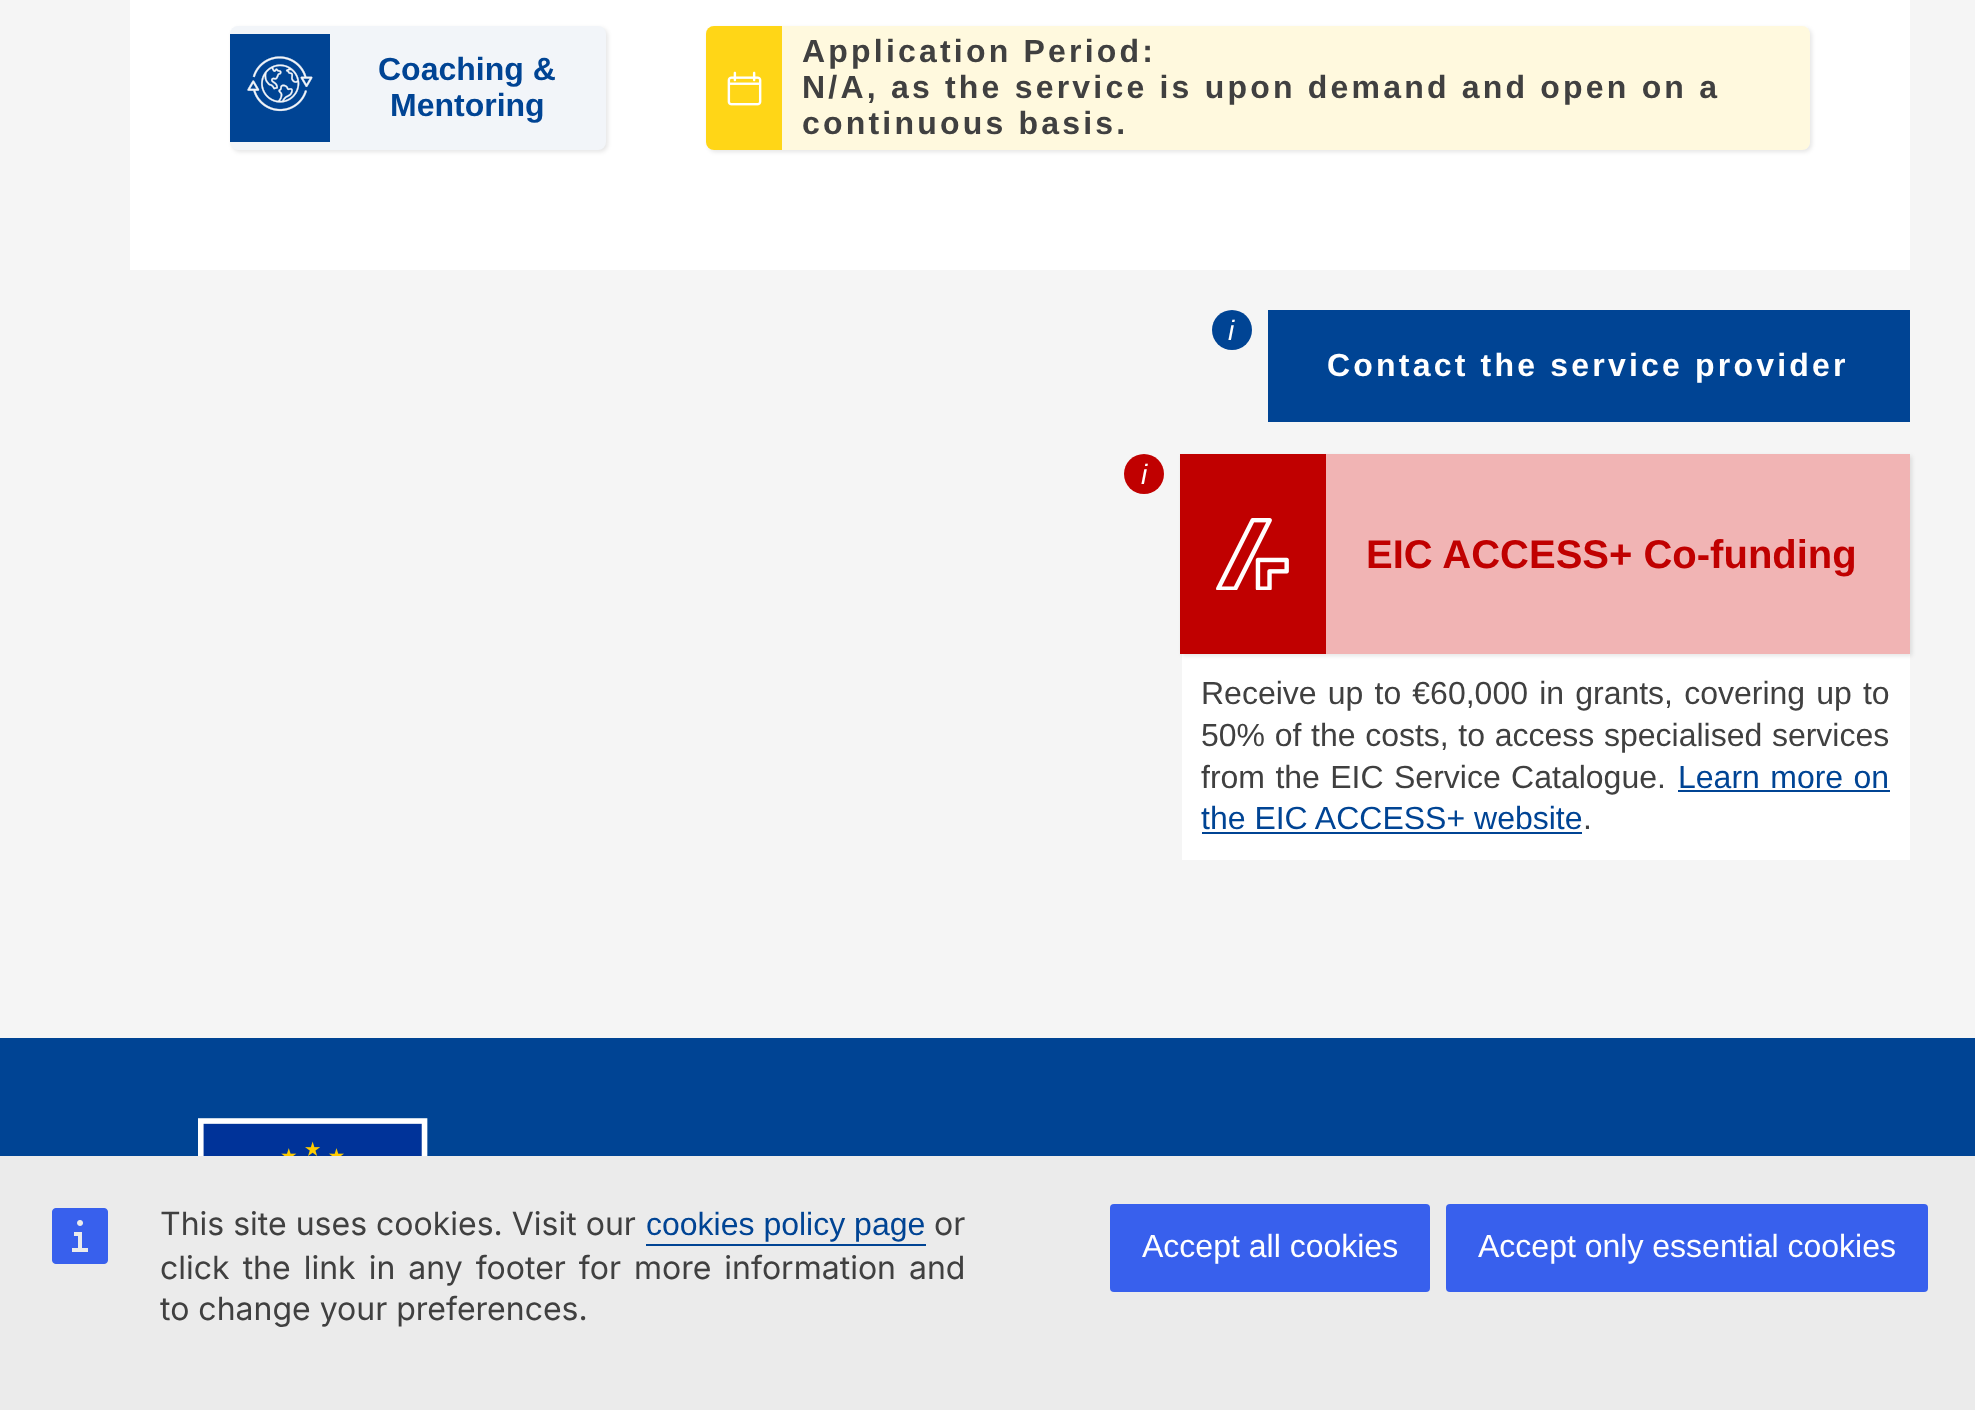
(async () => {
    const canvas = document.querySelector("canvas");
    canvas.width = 1975;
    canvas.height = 1410;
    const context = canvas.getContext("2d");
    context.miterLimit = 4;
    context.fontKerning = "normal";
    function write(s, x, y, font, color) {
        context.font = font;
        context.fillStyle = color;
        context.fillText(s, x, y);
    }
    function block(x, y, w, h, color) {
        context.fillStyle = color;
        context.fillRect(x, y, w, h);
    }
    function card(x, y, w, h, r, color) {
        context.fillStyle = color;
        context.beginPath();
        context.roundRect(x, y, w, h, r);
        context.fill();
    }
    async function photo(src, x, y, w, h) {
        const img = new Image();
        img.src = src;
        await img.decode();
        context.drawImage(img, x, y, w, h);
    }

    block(0, 0, 1975, 1410, "rgb(245, 245, 245)");
    block(130, 0, 1780, 270, "rgb(255, 255, 255)");
    context.fillStyle = "rgba(0, 0, 0, 0.1)";
    context.filter = "blur(2px)";
    context.beginPath();
    context.roundRect(232, 28, 376, 124, 8);
    context.fill();
    context.filter = "none";
    card(230, 26, 376, 124, 8, "rgb(242, 245, 249)");
    block(230, 34, 100, 108, "rgb(0, 68, 148)");
    await photo("media/1.png", 247, 56, 66, 56);
    write("Coaching &", 378, 80, "bold 32px Liberation Sans", "rgb(0, 68, 148)");
    write("Mentoring", 390, 116, "bold 32px Liberation Sans", "rgb(0, 68, 148)");
    context.save();
    context.beginPath();
    context.moveTo(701, 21);
    context.lineTo(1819, 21);
    context.lineTo(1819, 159);
    context.lineTo(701, 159);
    context.closePath();
    context.moveTo(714, 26);
    context.lineTo(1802, 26);
    context.bezierCurveTo(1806.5, 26, 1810, 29.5, 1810, 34);
    context.lineTo(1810, 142);
    context.bezierCurveTo(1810, 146.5, 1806.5, 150, 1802, 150);
    context.lineTo(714, 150);
    context.bezierCurveTo(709.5, 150, 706, 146.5, 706, 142);
    context.lineTo(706, 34);
    context.bezierCurveTo(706, 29.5, 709.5, 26, 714, 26);
    context.closePath();
    context.clip("evenodd");
    context.fillStyle = "rgba(0, 0, 0, 0.1)";
    context.filter = "blur(2px)";
    context.beginPath();
    context.roundRect(708, 28, 1104, 124, 8);
    context.fill();
    context.filter = "none";
    context.restore();
    card(706, 26, 1104, 124, 8, "rgba(255, 214, 23, 0.14)");
    context.fillStyle = "rgb(255, 214, 23)";
    context.beginPath();
    context.roundRect(706, 26, 76, 124, [8, 0, 0, 8]);
    context.fill();
    await photo("media/2.png", 727, 71, 35, 35);
    context.letterSpacing = "3.2px";
    write("Application Period:", 802, 62, "bold 32px Liberation Sans", "rgb(64, 64, 64)");
    write("N/A, as the service is upon demand and open on a", 802, 98, "bold 32px Liberation Sans", "rgb(64, 64, 64)");
    write("continuous basis.", 802, 134, "bold 32px Liberation Sans", "rgb(64, 64, 64)");
    context.fillStyle = "rgb(0, 68, 148)";
    context.beginPath();
    context.arc(1232, 330, 20, 0, Math.PI * 2);
    context.fill();
    context.letterSpacing = "0px";
    write("i", 1228, 340, "italic 28px Liberation Sans", "rgb(255, 255, 255)");
    block(1268, 310, 642, 112, "rgb(0, 68, 148)");
    context.letterSpacing = "3.2px";
    write("Contact the service provider", 1327, 376, "bold 32px Liberation Sans", "rgb(255, 255, 255)");
    context.fillStyle = "rgb(192, 0, 0)";
    context.beginPath();
    context.arc(1144, 474, 20, 0, Math.PI * 2);
    context.fill();
    context.letterSpacing = "0px";
    write("i", 1141, 484, "italic 28px Liberation Sans", "rgb(255, 255, 255)");
    block(1326, 454, 584, 200, "rgb(241, 180, 180)");
    block(1182, 654, 728, 206, "rgb(255, 255, 255)");
    context.save();
    context.beginPath();
    context.moveTo(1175, 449);
    context.lineTo(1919, 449);
    context.lineTo(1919, 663);
    context.lineTo(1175, 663);
    context.closePath();
    context.moveTo(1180, 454);
    context.lineTo(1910, 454);
    context.lineTo(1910, 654);
    context.lineTo(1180, 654);
    context.closePath();
    context.clip("evenodd");
    context.fillStyle = "rgba(0, 0, 0, 0.1)";
    context.filter = "blur(2px)";
    context.beginPath();
    context.rect(1182, 456, 730, 200);
    context.fill();
    context.filter = "none";
    context.restore();
    block(1180, 454, 146, 200, "rgb(192, 0, 0)");
    await photo("media/3.png", 1216, 518, 73, 72);
    write("EIC ACCESS+ Co-funding", 1366, 568, "bold 40px Liberation Sans", "rgb(192, 0, 0)");
    context.wordSpacing = "2.25px";
    write("Receive up to €60,000 in grants, covering up to", 1201, 704, "32px Liberation Sans", "rgb(64, 64, 64)");
    context.wordSpacing = "0.75px";
    write("50% of the costs, to access specialised services", 1201, 746, "32px Liberation Sans", "rgb(64, 64, 64)");
    context.wordSpacing = "1.5px";
    write("from the EIC Service Catalogue.", 1201, 788, "32px Liberation Sans", "rgb(64, 64, 64)");
    write("Learn more on", 1678, 788, "32px Liberation Sans", "rgb(0, 68, 148)");
    block(1678, 790, 212, 2, "rgb(0, 68, 148)");
    context.wordSpacing = "0px";
    write("the EIC ACCESS+ website", 1201, 829, "32px Liberation Sans", "rgb(0, 68, 148)");
    block(1202, 832, 380, 2, "rgb(0, 68, 148)");
    write(".", 1583, 829, "32px Liberation Sans", "rgb(64, 64, 64)");
    block(0, 1038, 1975, 118, "rgb(0, 68, 148)");
    await photo("media/4.png", 198, 1118, 230, 38);
    block(0, 1156, 1975, 254, "rgb(235, 235, 235)");
    await photo("media/5.png", 52, 1208, 56, 56);
    write("This site uses cookies. Visit our", 160, 1235, "32px Inter", "rgb(64, 64, 64)");
    write("cookies policy page", 646, 1235, "32px Liberation Sans", "rgb(0, 68, 148)");
    block(646, 1244, 280, 2, "rgb(0, 68, 148)");
    write("or", 934, 1235, "32px Inter", "rgb(64, 64, 64)");
    context.wordSpacing = "4px";
    write("click the link in any footer for more information and", 160, 1279, "32px Inter", "rgb(64, 64, 64)");
    context.wordSpacing = "0px";
    write("to change your preferences.", 160, 1320, "32px Inter", "rgb(64, 64, 64)");
    card(1110, 1204, 320, 88, 4, "rgb(56, 96, 237)");
    write("Accept all cookies", 1142, 1257, "32px Liberation Sans", "rgb(255, 255, 255)");
    card(1446, 1204, 482, 88, 4, "rgb(56, 96, 237)");
    write("Accept only essential cookies", 1478, 1257, "32px Liberation Sans", "rgb(255, 255, 255)");
})();
